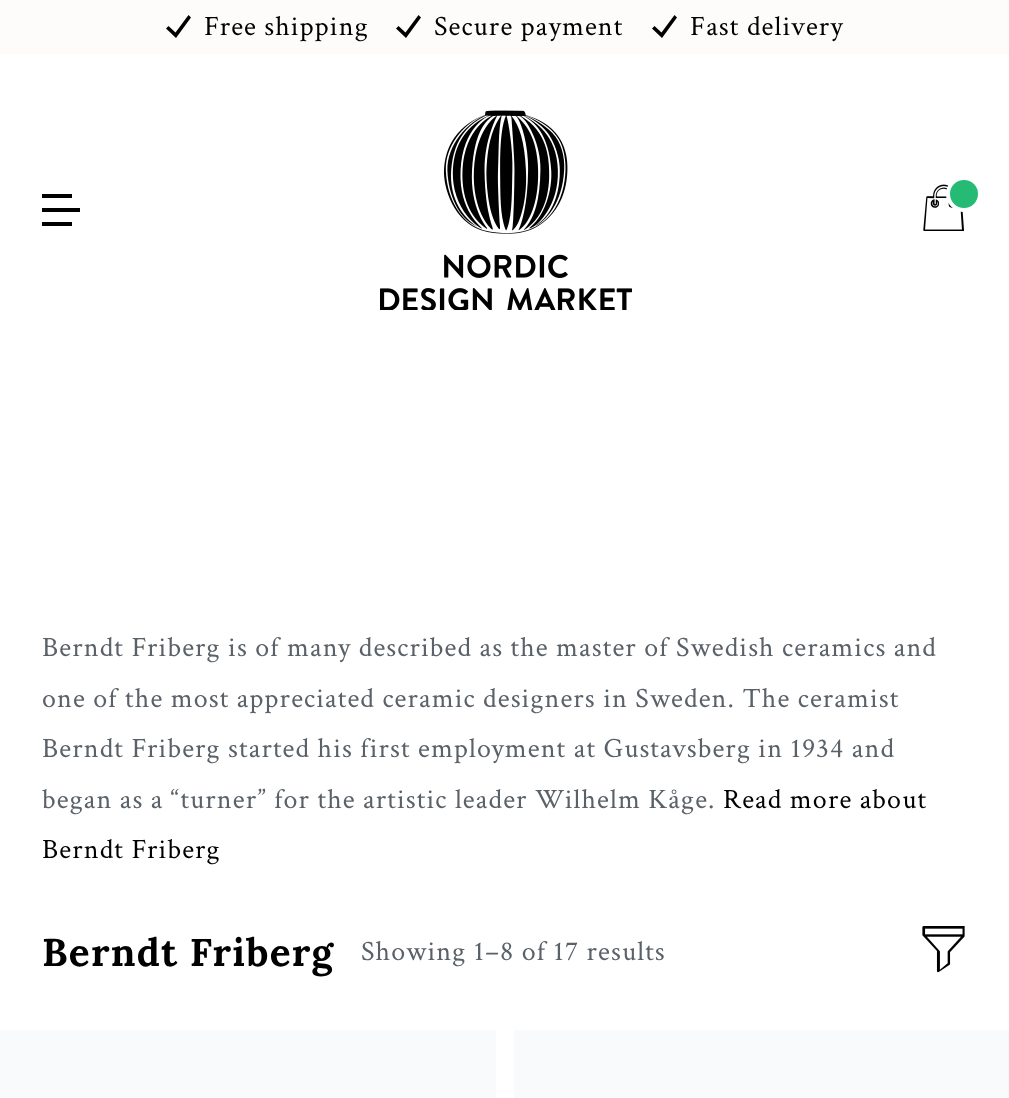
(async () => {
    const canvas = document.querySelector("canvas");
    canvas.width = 1009;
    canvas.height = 1098;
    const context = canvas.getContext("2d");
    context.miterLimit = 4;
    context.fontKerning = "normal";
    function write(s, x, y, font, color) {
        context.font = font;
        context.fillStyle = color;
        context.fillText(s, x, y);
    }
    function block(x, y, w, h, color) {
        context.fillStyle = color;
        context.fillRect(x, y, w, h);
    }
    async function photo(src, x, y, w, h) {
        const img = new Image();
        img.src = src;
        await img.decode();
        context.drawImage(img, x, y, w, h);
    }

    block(0, 0, 1009, 1098, "rgb(255, 255, 255)");
    block(0, 0, 1009, 54, "rgb(254, 252, 251)");
    context.fillStyle = "rgb(0, 0, 0)";
    context.beginPath();
    context.moveTo(176, 38);
    context.lineTo(166, 28.5);
    context.lineTo(168.5, 26);
    context.lineTo(175.5, 32.5);
    context.lineTo(188.5, 15);
    context.lineTo(191, 17.5);
    context.closePath();
    context.fill();
    context.letterSpacing = "1.12px";
    write("Free shipping", 204, 35, "28px Crimson Text", "rgb(0, 0, 0)");
    context.beginPath();
    context.moveTo(406, 38);
    context.lineTo(396, 28.5);
    context.lineTo(398.5, 26);
    context.lineTo(405.5, 32.5);
    context.lineTo(418.5, 15);
    context.lineTo(421, 17.5);
    context.closePath();
    context.fill();
    write("Secure payment", 434, 35, "28px Crimson Text", "rgb(0, 0, 0)");
    context.beginPath();
    context.moveTo(662, 38);
    context.lineTo(652, 28.5);
    context.lineTo(654.5, 26);
    context.lineTo(661.5, 32.5);
    context.lineTo(674.5, 15);
    context.lineTo(677, 17.5);
    context.closePath();
    context.fill();
    write("Fast delivery", 690, 35, "28px Crimson Text", "rgb(0, 0, 0)");
    block(42, 194, 30, 4, "rgb(0, 0, 0)");
    block(42, 208, 38, 4, "rgb(0, 0, 0)");
    block(42, 222, 30, 4, "rgb(0, 0, 0)");
    await photo("media/1.png", 380, 110, 252, 200);
    await photo("media/2.png", 923, 184, 41, 48);
    context.fillStyle = "rgb(37, 187, 117)";
    context.beginPath();
    context.arc(964, 194, 16, 0, Math.PI * 2);
    context.fill();
    context.strokeStyle = "rgb(255, 255, 255)";
    context.lineWidth = 4;
    context.stroke();
    write("Berndt Friberg is of many described as the master of Swedish ceramics and", 42, 656, "28px Crimson Text", "rgb(90, 97, 104)");
    write("one of the most appreciated ceramic designers in Sweden. The ceramist", 42, 707, "28px Crimson Text", "rgb(90, 97, 104)");
    write("Berndt Friberg started his first employment at Gustavsberg in 1934 and", 42, 757, "28px Crimson Text", "rgb(90, 97, 104)");
    write("began as a “turner” for the artistic leader Wilhelm Kåge.", 42, 808, "28px Crimson Text", "rgb(90, 97, 104)");
    write("Read more about", 723, 808, "28px Crimson Text", "rgb(0, 0, 0)");
    write("Berndt Friberg", 42, 858, "28px Crimson Text", "rgb(0, 0, 0)");
    context.letterSpacing = "1.25px";
    write("Berndt Friberg", 42, 966, "bold 38.75px Lora", "rgb(0, 0, 0)");
    context.letterSpacing = "1.12px";
    write("Showing 1–8 of 17 results", 361, 960, "28px Crimson Text", "rgb(90, 97, 104)");
    await photo("media/3.png", 922, 926, 43, 47);
    block(0, 1030, 496, 68, "rgb(249, 250, 251)");
    block(514, 1030, 495, 68, "rgb(249, 250, 251)");
})();
